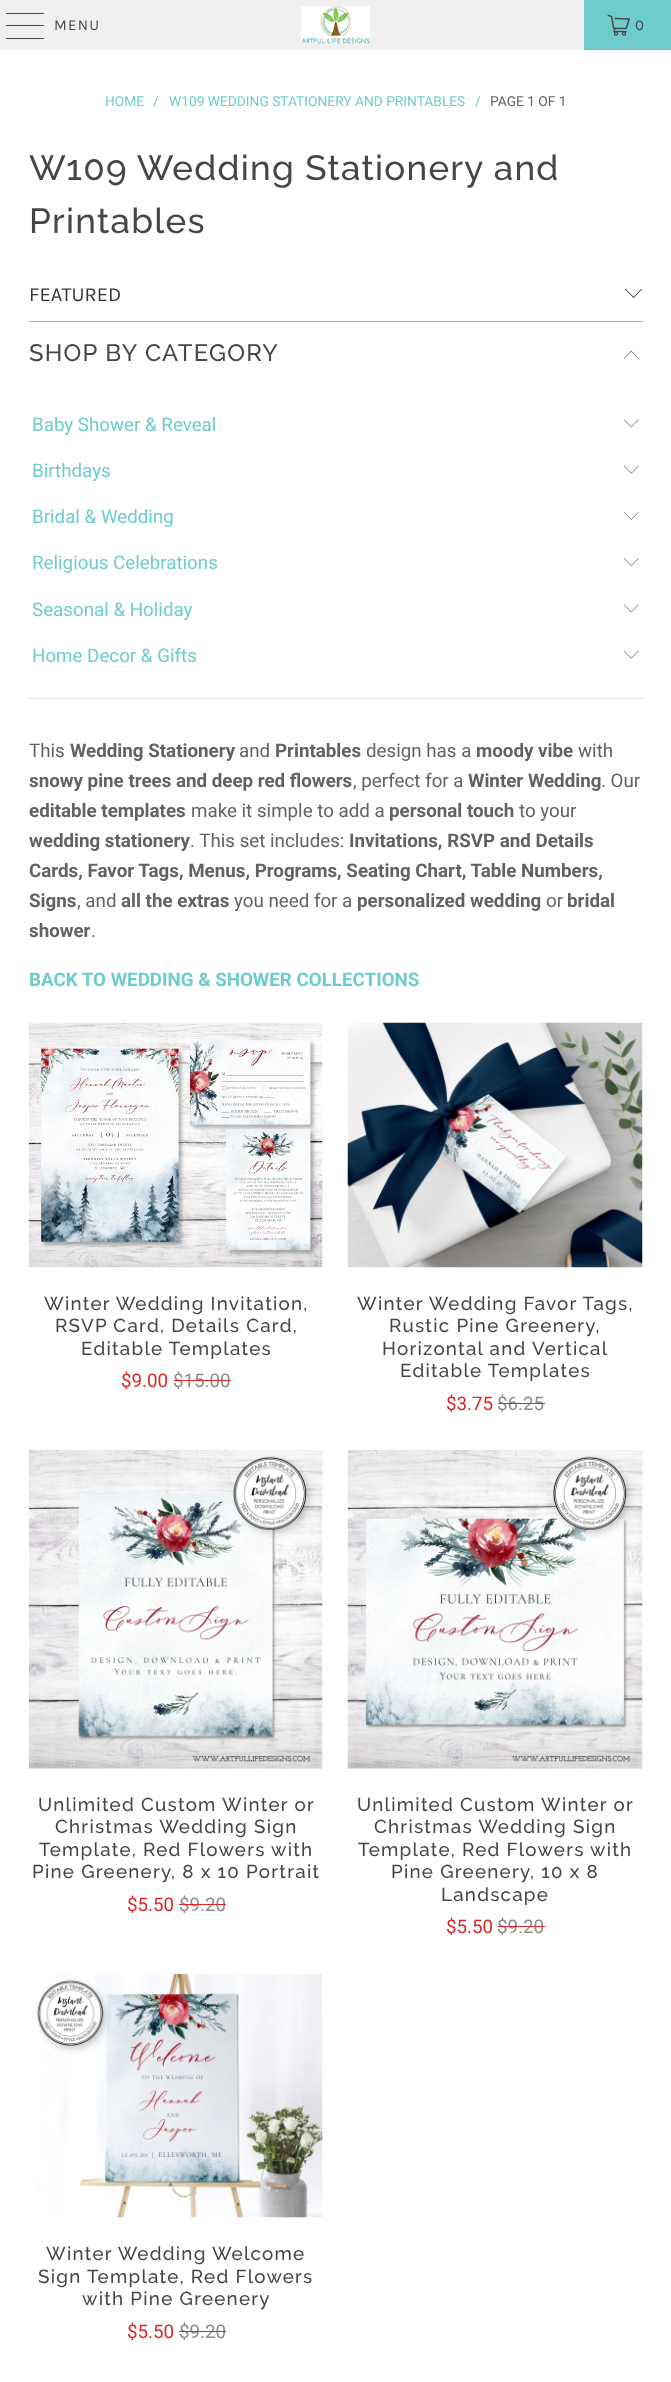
(async () => {
    const canvas = document.querySelector("canvas");
    canvas.width = 671;
    canvas.height = 2382;
    const context = canvas.getContext("2d");
    context.miterLimit = 4;
    context.fontKerning = "normal";
    function write(s, x, y, font, color) {
        context.font = font;
        context.fillStyle = color;
        context.fillText(s, x, y);
    }
    function block(x, y, w, h, color) {
        context.fillStyle = color;
        context.fillRect(x, y, w, h);
    }
    function card(x, y, w, h, r, color) {
        context.fillStyle = color;
        context.beginPath();
        context.roundRect(x, y, w, h, r);
        context.fill();
    }
    async function photo(src, x, y, w, h) {
        const img = new Image();
        img.src = src;
        await img.decode();
        context.drawImage(img, x, y, w, h);
    }

    block(0, 0, 671, 2382, "rgb(255, 255, 255)");
    block(0, 0, 584, 50, "rgb(240, 240, 240)");
    card(6, 13, 38, 1, 0.5, "rgb(71, 70, 70)");
    card(6, 25, 38, 1, 0.5, "rgb(71, 70, 70)");
    card(6, 38, 38, 1, 0.5, "rgb(71, 70, 70)");
    context.letterSpacing = "1.25px";
    write("MENU", 54, 30, "15px Karla", "rgb(71, 70, 70)");
    await photo("media/1.png", 301, 6, 69, 38);
    block(584, 0, 87, 50, "rgb(110, 204, 204)");
    await photo("media/2.png", 607, 14, 23, 22);
    write("0", 635, 30, "15px Karla", "rgb(71, 70, 70)");
    context.letterSpacing = "0px";
    write("HOME", 105, 106, "13.75px Roboto", "rgb(110, 204, 204)");
    write("/", 153, 106, "13.75px Roboto", "rgb(110, 204, 204)");
    write("W109 WEDDING STATIONERY AND PRINTABLES", 169, 106, "13.75px Roboto", "rgb(110, 204, 204)");
    write("/", 475, 106, "13.75px Roboto", "rgb(110, 204, 204)");
    write("PAGE 1 OF 1", 490, 106, "13.75px Roboto", "rgb(98, 98, 98)");
    context.letterSpacing = "1.25px";
    write("W109 Wedding Stationery and", 29, 180, "500 35px Raleway", "rgb(71, 70, 70)");
    write("Printables", 29, 233, "500 35px Raleway", "rgb(71, 70, 70)");
    await photo("media/3.png", 625, 289, 17, 9);
    context.letterSpacing = "0px";
    write("FEATURED", 29, 301, "20px Karla", "rgb(51, 51, 51)");
    block(29, 321, 614, 1, "rgb(170, 170, 170)");
    context.letterSpacing = "1.25px";
    write("SHOP BY CATEGORY", 29, 361, "500 23.75px Raleway", "rgb(71, 70, 70)");
    await photo("media/4.png", 623, 350, 16, 9);
    context.letterSpacing = "0px";
    write("Baby Shower & Reveal", 32, 431, "18.75px Roboto", "rgb(110, 204, 204)");
    await photo("media/5.png", 623, 419, 16, 9);
    write("Birthdays", 32, 477, "18.75px Roboto", "rgb(110, 204, 204)");
    await photo("media/6.png", 623, 465, 16, 9);
    write("Bridal & Wedding", 32, 523, "18.75px Roboto", "rgb(110, 204, 204)");
    await photo("media/7.png", 623, 512, 16, 8);
    write("Religious Celebrations", 32, 569, "18.75px Roboto", "rgb(110, 204, 204)");
    await photo("media/8.png", 623, 558, 16, 9);
    write("Seasonal & Holiday", 32, 616, "18.75px Roboto", "rgb(110, 204, 204)");
    await photo("media/5.png", 623, 604, 16, 9);
    write("Home Decor & Gifts", 32, 662, "18.75px Roboto", "rgb(110, 204, 204)");
    await photo("media/6.png", 623, 650, 16, 9);
    block(29, 698, 614, 1, "rgb(227, 227, 227)");
    write("This", 29, 757, "18.75px Roboto", "rgb(98, 98, 98)");
    write("Wedding Stationery", 70, 757, "bold 18.75px Roboto", "rgb(98, 98, 98)");
    write("and", 239, 757, "18.75px Roboto", "rgb(98, 98, 98)");
    write("Printables", 275, 757, "bold 18.75px Roboto", "rgb(98, 98, 98)");
    write("design has a", 366, 757, "18.75px Roboto", "rgb(98, 98, 98)");
    write("moody vibe", 476, 757, "bold 18.75px Roboto", "rgb(98, 98, 98)");
    write("with", 578, 757, "18.75px Roboto", "rgb(98, 98, 98)");
    write("snowy pine trees and deep red flowers", 29, 787, "bold 18.75px Roboto", "rgb(98, 98, 98)");
    write(", perfect for a", 353, 787, "18.75px Roboto", "rgb(98, 98, 98)");
    write("Winter Wedding", 468, 787, "bold 18.75px Roboto", "rgb(98, 98, 98)");
    write(". Our", 601, 787, "18.75px Roboto", "rgb(98, 98, 98)");
    write("editable templates", 29, 817, "bold 18.75px Roboto", "rgb(98, 98, 98)");
    write("make it simple to add a", 191, 817, "18.75px Roboto", "rgb(98, 98, 98)");
    write("personal touch", 389, 817, "bold 18.75px Roboto", "rgb(98, 98, 98)");
    write("to your", 519, 817, "18.75px Roboto", "rgb(98, 98, 98)");
    write("wedding stationery", 29, 847, "bold 18.75px Roboto", "rgb(98, 98, 98)");
    write(". This set includes:", 190, 847, "18.75px Roboto", "rgb(98, 98, 98)");
    write("Invitations, RSVP and Details", 349, 847, "bold 18.75px Roboto", "rgb(98, 98, 98)");
    write("Cards, Favor Tags, Menus, Programs, Seating Chart, Table Numbers,", 29, 877, "bold 18.75px Roboto", "rgb(98, 98, 98)");
    write("Signs", 29, 907, "bold 18.75px Roboto", "rgb(98, 98, 98)");
    write(", and", 77, 907, "18.75px Roboto", "rgb(98, 98, 98)");
    write("all the extras", 121, 907, "bold 18.75px Roboto", "rgb(98, 98, 98)");
    write("you need for a", 234, 907, "18.75px Roboto", "rgb(98, 98, 98)");
    write("personalized wedding", 357, 907, "bold 18.75px Roboto", "rgb(98, 98, 98)");
    write("or", 546, 907, "18.75px Roboto", "rgb(98, 98, 98)");
    write("bridal", 567, 907, "bold 18.75px Roboto", "rgb(98, 98, 98)");
    write("shower", 29, 937, "bold 18.75px Roboto", "rgb(98, 98, 98)");
    write(".", 91, 937, "18.75px Roboto", "rgb(98, 98, 98)");
    write("BACK TO WEDDING & SHOWER COLLECTIONS", 29, 986, "bold 18.75px Roboto", "rgb(110, 204, 204)");
    await photo("media/9.png", 28, 1022, 295, 246);
    context.letterSpacing = "1.25px";
    write("Winter Wedding Invitation,", 44, 1310, "500 18.75px Raleway", "rgb(71, 70, 70)");
    write("RSVP Card, Details Card,", 55, 1332, "500 18.75px Raleway", "rgb(71, 70, 70)");
    write("Editable Templates", 81, 1355, "500 18.75px Raleway", "rgb(71, 70, 70)");
    context.letterSpacing = "0px";
    write("$9.00", 121, 1387, "18.75px Roboto", "rgb(218, 40, 40)");
    write("$15.00", 173, 1387, "18.75px Roboto", "rgb(140, 139, 139)");
    block(174, 1380, 57, 1, "rgb(218, 40, 40)");
    await photo("media/10.png", 347, 1022, 296, 246);
    context.letterSpacing = "1.25px";
    write("Winter Wedding Favor Tags,", 357, 1310, "500 18.75px Raleway", "rgb(71, 70, 70)");
    write("Rustic Pine Greenery,", 389, 1332, "500 18.75px Raleway", "rgb(71, 70, 70)");
    write("Horizontal and Vertical", 382, 1355, "500 18.75px Raleway", "rgb(71, 70, 70)");
    write("Editable Templates", 400, 1377, "500 18.75px Raleway", "rgb(71, 70, 70)");
    context.letterSpacing = "0px";
    write("$3.75", 446, 1410, "18.75px Roboto", "rgb(218, 40, 40)");
    write("$6.25", 497, 1410, "18.75px Roboto", "rgb(140, 139, 139)");
    block(498, 1403, 47, 1, "rgb(218, 40, 40)");
    await photo("media/11.png", 28, 1450, 295, 319);
    context.letterSpacing = "1.25px";
    write("Unlimited Custom Winter or", 38, 1811, "500 18.75px Raleway", "rgb(71, 70, 70)");
    write("Christmas Wedding Sign", 55, 1833, "500 18.75px Raleway", "rgb(71, 70, 70)");
    write("Template, Red Flowers with", 39, 1856, "500 18.75px Raleway", "rgb(71, 70, 70)");
    write("Pine Greenery, 8 x 10 Portrait", 32, 1878, "500 18.75px Raleway", "rgb(71, 70, 70)");
    context.letterSpacing = "0px";
    write("$5.50", 127, 1911, "18.75px Roboto", "rgb(218, 40, 40)");
    write("$9.20", 179, 1911, "18.75px Roboto", "rgb(140, 139, 139)");
    block(179, 1904, 47, 1, "rgb(218, 40, 40)");
    await photo("media/12.png", 347, 1450, 296, 319);
    context.letterSpacing = "1.25px";
    write("Unlimited Custom Winter or", 357, 1811, "500 18.75px Raleway", "rgb(71, 70, 70)");
    write("Christmas Wedding Sign", 374, 1833, "500 18.75px Raleway", "rgb(71, 70, 70)");
    write("Template, Red Flowers with", 358, 1856, "500 18.75px Raleway", "rgb(71, 70, 70)");
    write("Pine Greenery, 10 x 8", 391, 1878, "500 18.75px Raleway", "rgb(71, 70, 70)");
    write("Landscape", 441, 1901, "500 18.75px Raleway", "rgb(71, 70, 70)");
    context.letterSpacing = "0px";
    write("$5.50", 446, 1933, "18.75px Roboto", "rgb(218, 40, 40)");
    write("$9.20", 497, 1933, "18.75px Roboto", "rgb(140, 139, 139)");
    block(498, 1926, 47, 1, "rgb(218, 40, 40)");
    await photo("media/13.png", 36, 1973, 287, 245);
    context.letterSpacing = "1.25px";
    write("Winter Wedding Welcome", 46, 2260, "500 18.75px Raleway", "rgb(71, 70, 70)");
    write("Sign Template, Red Flowers", 38, 2283, "500 18.75px Raleway", "rgb(71, 70, 70)");
    write("with Pine Greenery", 82, 2305, "500 18.75px Raleway", "rgb(71, 70, 70)");
    context.letterSpacing = "0px";
    write("$5.50", 127, 2338, "18.75px Roboto", "rgb(218, 40, 40)");
    write("$9.20", 179, 2338, "18.75px Roboto", "rgb(140, 139, 139)");
    block(179, 2331, 47, 1, "rgb(218, 40, 40)");
})();
